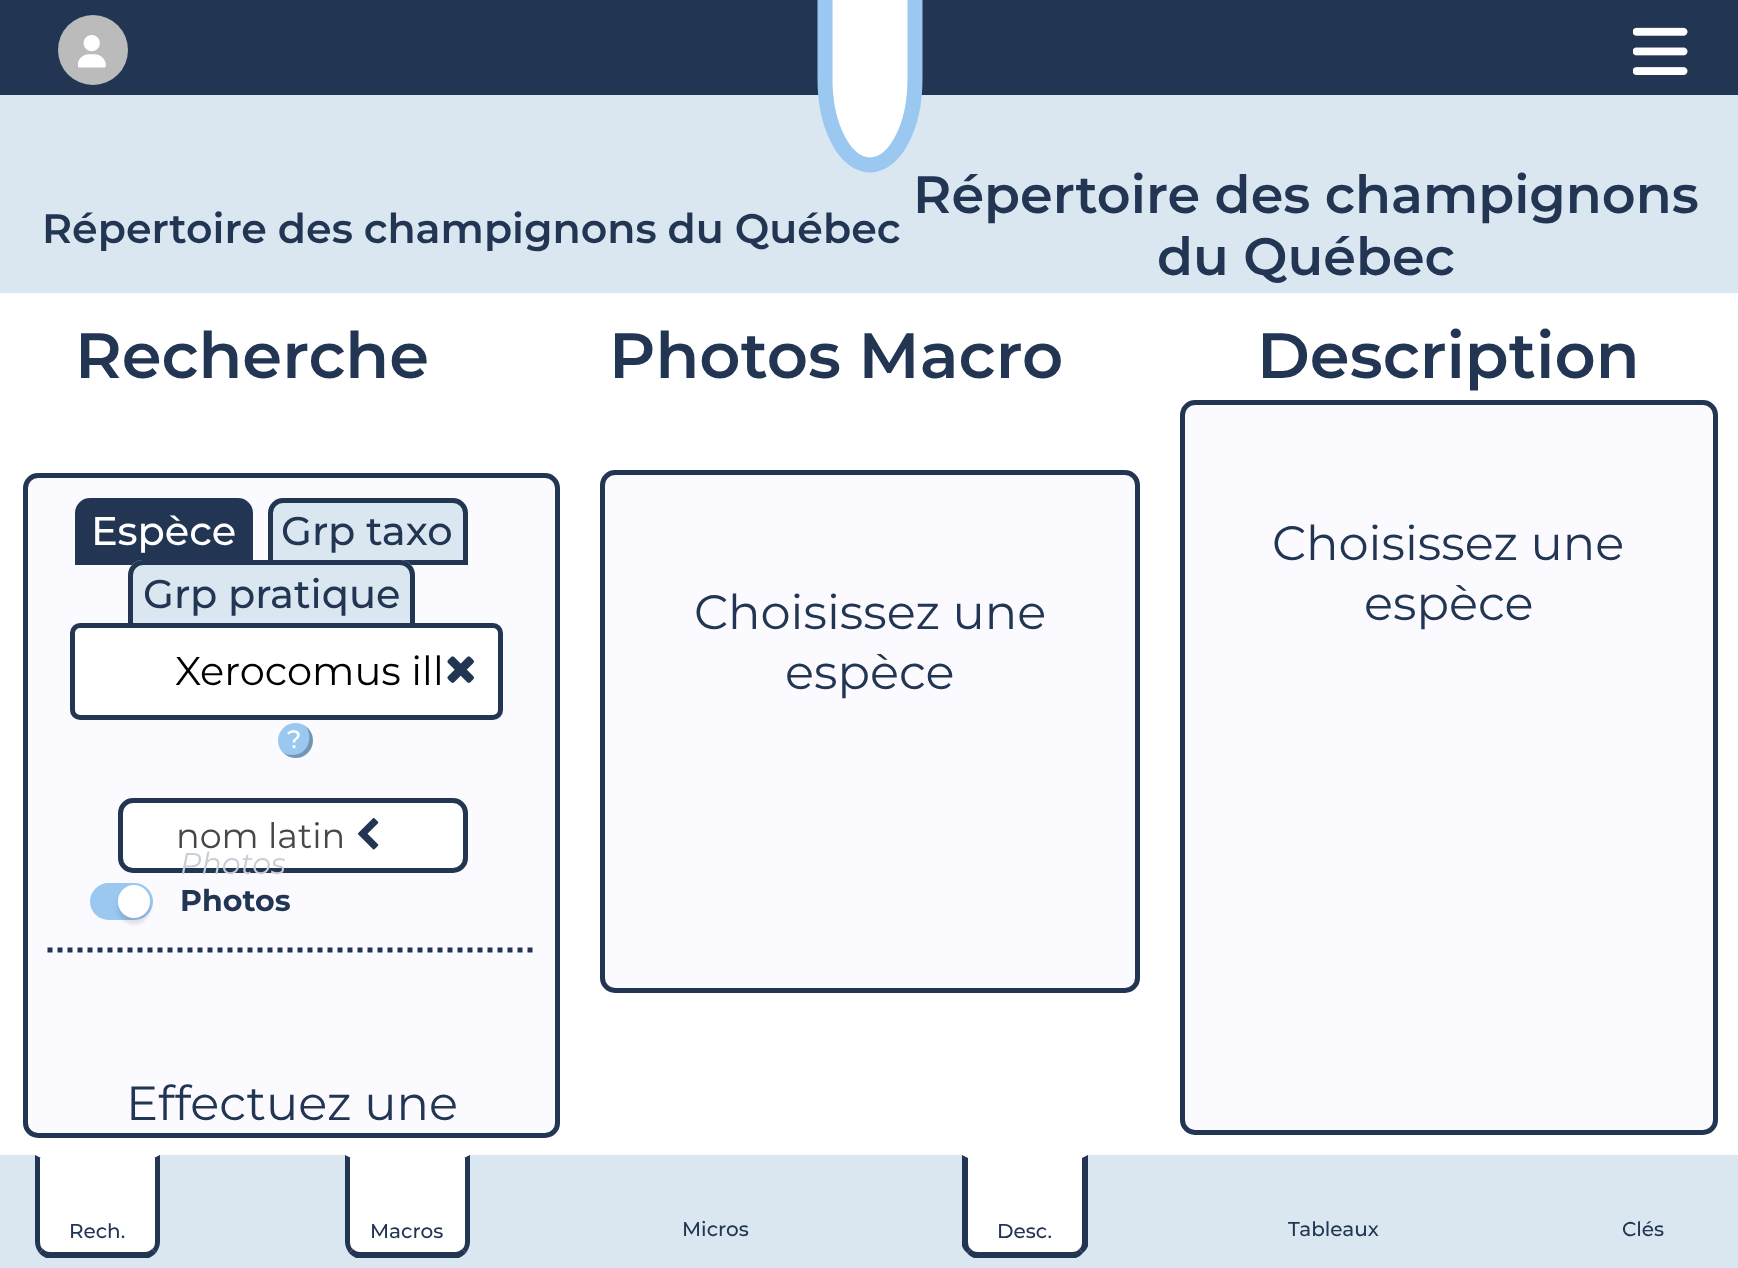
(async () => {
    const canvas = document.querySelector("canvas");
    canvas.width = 1738;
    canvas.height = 1268;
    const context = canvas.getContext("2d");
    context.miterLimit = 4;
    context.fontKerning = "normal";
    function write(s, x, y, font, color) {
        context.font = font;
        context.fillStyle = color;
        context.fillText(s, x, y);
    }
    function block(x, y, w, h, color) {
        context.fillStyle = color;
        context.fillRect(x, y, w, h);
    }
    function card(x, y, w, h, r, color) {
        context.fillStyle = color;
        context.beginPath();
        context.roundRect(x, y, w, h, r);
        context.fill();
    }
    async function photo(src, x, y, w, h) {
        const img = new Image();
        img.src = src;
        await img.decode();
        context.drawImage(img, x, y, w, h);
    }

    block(0, 0, 1738, 1268, "rgb(255, 255, 255)");
    block(0, 0, 1738, 95, "rgb(34, 54, 84)");
    await photo("media/1.png", 1633, 27, 55, 48);
    context.fillStyle = "rgb(187, 187, 187)";
    context.beginPath();
    context.arc(93, 50, 35, 0, Math.PI * 2);
    context.fill();
    await photo("media/2.png", 78, 35, 28, 33);
    block(0, 95, 1738, 198, "rgb(218, 230, 240)");
    context.fillStyle = "rgb(255, 255, 255)";
    context.beginPath();
    context.moveTo(818, -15);
    context.lineTo(922, -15);
    context.lineTo(922, 79);
    context.bezierCurveTo(922, 131, 899, 172, 870, 172);
    context.bezierCurveTo(841, 172, 818, 131, 818, 79);
    context.closePath();
    context.fill();
    write("Répertoire des champignons", 913, 213, "600 52.5px Montserrat", "rgb(34, 54, 84)");
    context.beginPath();
    context.moveTo(825, -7.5);
    context.lineTo(915, -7.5);
    context.lineTo(915, 79);
    context.bezierCurveTo(915, 126.5, 895, 165, 870, 165);
    context.bezierCurveTo(845, 165, 825, 126.5, 825, 79);
    context.closePath();
    context.strokeStyle = "rgb(154, 200, 240)";
    context.lineWidth = 15;
    context.stroke();
    context.wordSpacing = "-0.5px";
    write("Répertoire des champignons du Québec", 42, 243, "600 41.15px Montserrat", "rgb(34, 54, 84)");
    context.wordSpacing = "0px";
    write("du Québec", 1157, 275, "600 52.5px Montserrat", "rgb(34, 54, 84)");
    write("Recherche", 75, 378, "600 64px Montserrat", "rgb(34, 54, 84)");
    context.fillStyle = "rgb(251, 251, 255)";
    context.beginPath();
    context.roundRect(25.5, 475.5, 532, 660, 12.5);
    context.fill();
    context.strokeStyle = "rgb(34, 54, 84)";
    context.lineWidth = 5;
    context.stroke();
    context.fillStyle = "rgb(34, 54, 84)";
    context.beginPath();
    context.roundRect(77.5, 500.5, 173, 62, [12.5, 12.5, 0, 0]);
    context.fill();
    context.stroke();
    write("Espèce", 91, 545, "500 40px Montserrat", "rgb(255, 255, 255)");
    context.fillStyle = "rgb(218, 230, 240)";
    context.beginPath();
    context.roundRect(270.5, 500.5, 195, 62, [12.5, 12.5, 0, 0]);
    context.fill();
    context.stroke();
    write("Grp taxo", 281, 545, "500 40px Montserrat", "rgb(34, 54, 84)");
    context.fillStyle = "rgb(218, 230, 240)";
    context.beginPath();
    context.roundRect(128, 560, 287, 63, [15, 15, 0, 0]);
    context.fill();
    context.fillStyle = "rgb(255, 255, 255)";
    context.beginPath();
    context.roundRect(72.5, 625.5, 428, 92, 7.5);
    context.fill();
    context.stroke();
    context.save();
    context.beginPath();
    context.rect(48, 498, 435, 125);
    context.clip();
    context.beginPath();
    context.roundRect(130.5, 562.5, 282, 63, [12.5, 12.5, 0, 0]);
    context.stroke();
    context.restore();
    write("Grp pratique", 143, 608, "500 40px Montserrat", "rgb(34, 54, 84)");
    write("Xerocomus ill", 175, 685, "40px Montserrat", "rgb(0, 0, 0)");
    await photo("media/3.png", 447, 656, 27, 27);
    context.fillStyle = "rgb(154, 200, 240)";
    context.beginPath();
    context.arc(295.5, 740.5, 17.5, 0, Math.PI * 2);
    context.fill();
    context.fillStyle = "rgba(0, 0, 0, 0.25)";
    context.beginPath();
    context.moveTo(282.5, 752);
    context.bezierCurveTo(285, 754, 288, 755, 292, 755);
    context.bezierCurveTo(309, 755, 313.5, 736, 305.5, 726);
    context.bezierCurveTo(314.5, 732, 315.5, 745, 308, 753);
    context.bezierCurveTo(301, 760, 289, 759.5, 282.5, 752);
    context.closePath();
    context.fill();
    write("?", 287, 748, "500 25px Montserrat", "rgb(255, 255, 255)");
    context.beginPath();
    context.roundRect(120.5, 800.5, 345, 70, 12.5);
    context.fill();
    context.stroke();
    write("nom latin", 176, 848, "35px Montserrat", "rgb(71, 71, 71)");
    await photo("media/4.png", 358, 818, 21, 32);
    card(90, 883, 63, 37, 18.5, "rgb(154, 200, 240)");
    context.fillStyle = "rgba(37, 34, 71, 0.1)";
    context.filter = "blur(2.5px)";
    context.beginPath();
    context.roundRect(118, 890, 32, 33, 16);
    context.fill();
    context.filter = "none";
    context.fillStyle = "rgba(37, 34, 71, 0.05)";
    context.filter = "blur(1px)";
    context.beginPath();
    context.roundRect(118, 893, 32, 32, 16);
    context.fill();
    context.filter = "none";
    card(118, 885, 32, 33, 16, "rgb(255, 255, 255)");
    write("Photos", 180, 874, "italic 30px Montserrat", "rgb(201, 206, 214)");
    write("Photos", 180, 911, "bold 30px Montserrat", "rgb(34, 54, 84)");
    context.beginPath();
    context.moveTo(47.5, 950);
    context.lineTo(535, 950);
    context.setLineDash([5, 5]);
    context.stroke();
    write("Effectuez une", 126, 1120, "48px Montserrat", "rgb(34, 54, 84)");
    write("Photos Macro", 609, 378, "600 64px Montserrat", "rgb(34, 54, 84)");
    context.fillStyle = "rgb(251, 251, 255)";
    context.beginPath();
    context.roundRect(602.5, 472.5, 535, 518, 12.5);
    context.fill();
    context.setLineDash([]);
    context.stroke();
    write("Choisissez une", 694, 629, "48px Montserrat", "rgb(34, 54, 84)");
    write("espèce", 785, 689, "48px Montserrat", "rgb(34, 54, 84)");
    write("Description", 1257, 378, "600 64px Montserrat", "rgb(34, 54, 84)");
    context.fillStyle = "rgb(251, 251, 255)";
    context.beginPath();
    context.roundRect(1182.5, 402.5, 533, 730, 12.5);
    context.fill();
    context.stroke();
    write("Choisissez une", 1272, 560, "48px Montserrat", "rgb(34, 54, 84)");
    write("espèce", 1364, 620, "48px Montserrat", "rgb(34, 54, 84)");
    block(0, 1155, 1738, 113, "rgb(218, 230, 240)");
    context.fillStyle = "rgb(255, 255, 255)";
    context.beginPath();
    context.roundRect(40, 1158, 115, 95, [0, 0, 10, 10]);
    context.fill();
    context.beginPath();
    context.moveTo(35, 1155);
    context.lineTo(41, 1158);
    context.lineTo(154, 1158);
    context.lineTo(160, 1155);
    context.closePath();
    context.fill();
    context.fillStyle = "rgb(34, 54, 84)";
    context.beginPath();
    context.moveTo(160, 1155);
    context.lineTo(154, 1158);
    context.lineTo(155, 1158);
    context.lineTo(155, 1242);
    context.bezierCurveTo(155, 1245, 154, 1248, 152, 1249);
    context.lineTo(156, 1253);
    context.bezierCurveTo(158, 1250, 160, 1246, 160, 1242);
    context.closePath();
    context.fill();
    context.beginPath();
    context.moveTo(46, 1258);
    context.bezierCurveTo(44, 1257, 41, 1255, 39, 1253);
    context.lineTo(43, 1249);
    context.bezierCurveTo(45, 1251, 47, 1252, 50, 1252);
    context.lineTo(145, 1252);
    context.bezierCurveTo(148, 1252, 150, 1251, 152, 1249);
    context.lineTo(156, 1253);
    context.bezierCurveTo(154, 1255, 151, 1257, 149, 1258);
    context.closePath();
    context.fill();
    context.beginPath();
    context.moveTo(40, 1158);
    context.lineTo(41, 1158);
    context.lineTo(35, 1155);
    context.lineTo(35, 1242);
    context.bezierCurveTo(35, 1246, 37, 1250, 39, 1253);
    context.lineTo(43, 1249);
    context.bezierCurveTo(41, 1248, 40, 1245, 40, 1242);
    context.closePath();
    context.fill();
    write("Rech.", 69, 1238, "500 20px Montserrat", "rgb(34, 54, 84)");
    context.fillStyle = "rgb(255, 255, 255)";
    context.beginPath();
    context.roundRect(350, 1158, 115, 95, [0, 0, 10, 10]);
    context.fill();
    context.beginPath();
    context.moveTo(345, 1155);
    context.lineTo(351, 1158);
    context.lineTo(464, 1158);
    context.lineTo(470, 1155);
    context.closePath();
    context.fill();
    context.fillStyle = "rgb(34, 54, 84)";
    context.beginPath();
    context.moveTo(470, 1155);
    context.lineTo(464, 1158);
    context.lineTo(465, 1158);
    context.lineTo(465, 1242);
    context.bezierCurveTo(465, 1245, 464, 1248, 462, 1249);
    context.lineTo(466, 1253);
    context.bezierCurveTo(468, 1250, 470, 1246, 470, 1242);
    context.closePath();
    context.fill();
    context.beginPath();
    context.moveTo(356, 1258);
    context.bezierCurveTo(354, 1257, 351, 1255, 349, 1253);
    context.lineTo(353, 1249);
    context.bezierCurveTo(355, 1251, 357, 1252, 360, 1252);
    context.lineTo(455, 1252);
    context.bezierCurveTo(458, 1252, 460, 1251, 462, 1249);
    context.lineTo(466, 1253);
    context.bezierCurveTo(464, 1255, 461, 1257, 459, 1258);
    context.closePath();
    context.fill();
    context.beginPath();
    context.moveTo(350, 1158);
    context.lineTo(351, 1158);
    context.lineTo(345, 1155);
    context.lineTo(345, 1242);
    context.bezierCurveTo(345, 1246, 347, 1250, 349, 1253);
    context.lineTo(353, 1249);
    context.bezierCurveTo(351, 1248, 350, 1245, 350, 1242);
    context.closePath();
    context.fill();
    write("Macros", 370, 1238, "500 20px Montserrat", "rgb(34, 54, 84)");
    write("Micros", 682, 1236, "500 20px Montserrat", "rgb(34, 54, 84)");
    context.fillStyle = "rgb(255, 255, 255)";
    context.beginPath();
    context.roundRect(968, 1158, 115, 95, [0, 0, 10, 10]);
    context.fill();
    context.beginPath();
    context.moveTo(962, 1155);
    context.lineTo(968, 1158);
    context.lineTo(1082, 1158);
    context.lineTo(1088, 1155);
    context.closePath();
    context.fill();
    context.fillStyle = "rgb(34, 54, 84)";
    context.beginPath();
    context.moveTo(1088, 1155);
    context.lineTo(1088, 1246);
    context.bezierCurveTo(1087, 1249, 1085, 1251, 1083, 1253);
    context.lineTo(1079, 1249);
    context.bezierCurveTo(1081, 1248, 1082, 1245, 1082, 1242);
    context.lineTo(1082, 1158);
    context.closePath();
    context.fill();
    context.beginPath();
    context.moveTo(974, 1258);
    context.bezierCurveTo(971, 1257, 969, 1255, 967, 1253);
    context.lineTo(971, 1249);
    context.bezierCurveTo(972, 1251, 975, 1252, 978, 1252);
    context.lineTo(1072, 1252);
    context.bezierCurveTo(1075, 1252, 1078, 1251, 1079, 1249);
    context.lineTo(1083, 1253);
    context.bezierCurveTo(1081, 1255, 1079, 1257, 1076, 1258);
    context.closePath();
    context.fill();
    context.beginPath();
    context.moveTo(968, 1158);
    context.lineTo(968, 1242);
    context.bezierCurveTo(968, 1245, 969, 1248, 971, 1249);
    context.lineTo(967, 1253);
    context.bezierCurveTo(965, 1251, 963, 1249, 962, 1246);
    context.lineTo(962, 1155);
    context.closePath();
    context.fill();
    write("Desc.", 997, 1238, "500 20px Montserrat", "rgb(34, 54, 84)");
    write("Tableaux", 1288, 1236, "500 20px Montserrat", "rgb(34, 54, 84)");
    write("Clés", 1622, 1236, "500 20px Montserrat", "rgb(34, 54, 84)");
})();
